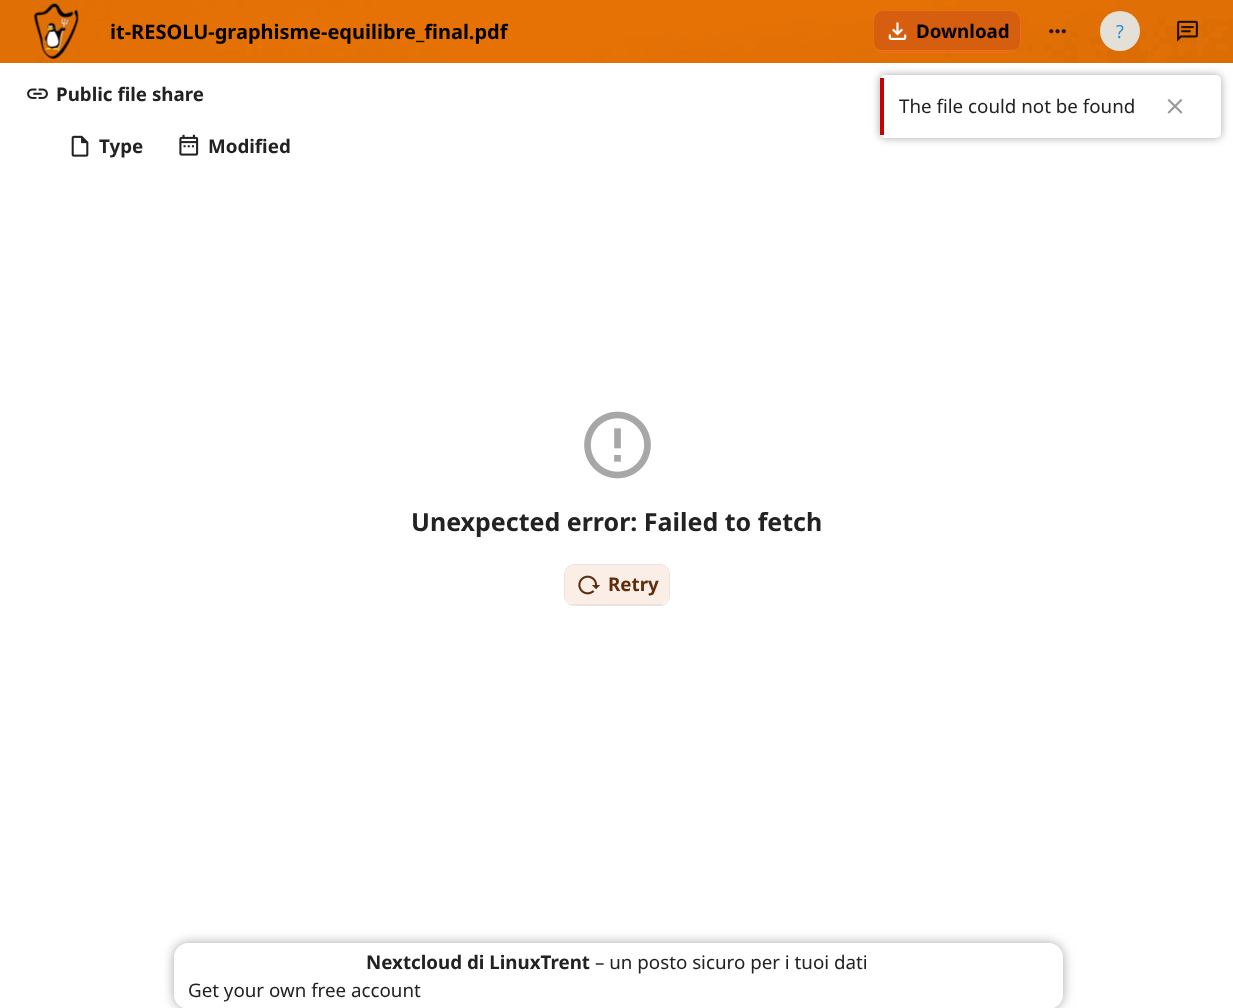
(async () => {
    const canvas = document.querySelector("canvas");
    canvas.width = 1233;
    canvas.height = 1008;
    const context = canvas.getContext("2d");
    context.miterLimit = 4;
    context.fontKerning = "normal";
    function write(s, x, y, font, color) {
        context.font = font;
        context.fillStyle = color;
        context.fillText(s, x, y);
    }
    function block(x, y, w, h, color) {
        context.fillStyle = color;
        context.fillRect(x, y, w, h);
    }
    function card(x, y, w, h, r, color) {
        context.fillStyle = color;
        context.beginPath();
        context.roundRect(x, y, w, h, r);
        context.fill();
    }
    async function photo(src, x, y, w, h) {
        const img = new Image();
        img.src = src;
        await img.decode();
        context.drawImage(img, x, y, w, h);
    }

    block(0, 0, 1233, 1008, "rgb(255, 255, 255)");
    await photo("media/1.png", 0, 0, 1233, 63);
    await photo("media/2.png", 33, 3, 46, 56);
    write("it-RESOLU-graphisme-equilibre_final.pdf", 110, 39, "bold 20px Noto Sans", "rgb(0, 0, 0)");
    context.fillStyle = "rgb(213, 94, 15)";
    context.beginPath();
    context.moveTo(882, 11);
    context.lineTo(1011, 11);
    context.bezierCurveTo(1016, 11, 1020, 15, 1020, 20);
    context.lineTo(1020, 42);
    context.bezierCurveTo(1020, 47, 1016, 50, 1011, 50);
    context.lineTo(882, 50);
    context.bezierCurveTo(878, 50, 874, 47, 874, 42);
    context.lineTo(874, 20);
    context.bezierCurveTo(874, 15, 878, 11, 882, 11);
    context.closePath();
    context.fill();
    context.beginPath();
    context.roundRect(873.5, 10.5, 147, 42, 9.5);
    context.strokeStyle = "rgb(239, 110, 25)";
    context.stroke();
    block(878, 50, 138, 1, "rgb(239, 110, 25)");
    await photo("media/3.png", 888, 22, 19, 18);
    write("Download", 916, 38, "bold 18.75px Noto Sans", "rgb(0, 0, 0)");
    await photo("media/4.png", 1049, 29, 17, 5);
    context.fillStyle = "rgba(255, 255, 255, 0.85)";
    context.beginPath();
    context.arc(1120, 31, 20, 0, Math.PI * 2);
    context.fill();
    context.fillStyle = "rgba(0, 130, 201, 0.09)";
    context.beginPath();
    context.arc(1120, 31, 20, 0, Math.PI * 2);
    context.fill();
    write("?", 1116, 38, "18px Noto Sans", "rgb(34, 144, 203)");
    await photo("media/5.png", 1177, 20, 21, 22);
    await photo("media/6.png", 27, 88, 21, 11);
    write("Public file share", 56, 101, "bold 18.75px Noto Sans", "rgb(34, 34, 34)");
    await photo("media/7.png", 71, 135, 18, 22);
    write("Type", 99, 153, "bold 18.75px Noto Sans", "rgb(34, 34, 34)");
    await photo("media/8.png", 179, 134, 20, 22);
    write("Modified", 208, 153, "bold 18.75px Noto Sans", "rgb(34, 34, 34)");
    await photo("media/9.png", 584, 411, 67, 68);
    write("Unexpected error: Failed to fetch", 411, 531, "bold 25px Noto Sans", "rgb(34, 34, 34)");
    context.fillStyle = "rgb(250, 238, 231)";
    context.beginPath();
    context.moveTo(574, 565);
    context.lineTo(660, 565);
    context.bezierCurveTo(665, 565, 669, 569, 669, 574);
    context.lineTo(669, 596);
    context.bezierCurveTo(669, 600, 665, 604, 660, 604);
    context.lineTo(574, 604);
    context.bezierCurveTo(569, 604, 565, 600, 565, 596);
    context.lineTo(565, 574);
    context.bezierCurveTo(565, 569, 569, 565, 574, 565);
    context.closePath();
    context.fill();
    context.beginPath();
    context.roundRect(564.5, 564.5, 105, 41, 9.5);
    context.strokeStyle = "rgb(237, 226, 219)";
    context.stroke();
    block(569, 604, 96, 1, "rgb(237, 226, 219)");
    await photo("media/10.png", 578, 575, 23, 20);
    write("Retry", 608, 591, "bold 18.75px Noto Sans", "rgb(96, 45, 11)");
    context.fillStyle = "rgba(77, 77, 77, 0.5)";
    context.filter = "blur(4px)";
    context.beginPath();
    context.roundRect(880, 75, 341, 63, 5);
    context.fill();
    context.filter = "none";
    card(880, 75, 341, 63, 5, "rgb(255, 255, 255)");
    block(880, 78, 4, 57, "rgb(201, 0, 0)");
    write("The file could not be found", 899, 113, "18.75px Noto Sans", "rgb(34, 34, 34)");
    await photo("media/11.png", 1167, 99, 16, 15);
    context.save();
    context.beginPath();
    context.moveTo(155, 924);
    context.lineTo(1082, 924);
    context.lineTo(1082, 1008);
    context.lineTo(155, 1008);
    context.closePath();
    context.moveTo(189, 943);
    context.lineTo(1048, 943);
    context.bezierCurveTo(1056.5, 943, 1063, 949.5, 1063, 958);
    context.lineTo(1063, 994);
    context.bezierCurveTo(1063, 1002.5, 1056.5, 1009, 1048, 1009);
    context.lineTo(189, 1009);
    context.bezierCurveTo(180.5, 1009, 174, 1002.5, 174, 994);
    context.lineTo(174, 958);
    context.bezierCurveTo(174, 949.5, 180.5, 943, 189, 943);
    context.closePath();
    context.clip("evenodd");
    context.fillStyle = "rgba(77, 77, 77, 0.5)";
    context.filter = "blur(6px)";
    context.beginPath();
    context.roundRect(174, 943, 889, 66, 15);
    context.fill();
    context.filter = "none";
    context.restore();
    card(174, 943, 889, 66, 15, "rgba(255, 255, 255, 0.8)");
    write("Nextcloud di LinuxTrent", 366, 969, "bold 18.75px Noto Sans", "rgb(34, 34, 34)");
    write("– un posto sicuro per i tuoi dati", 595, 969, "18.75px Noto Sans", "rgb(34, 34, 34)");
    write("Get your own free account", 188, 997, "18.75px Noto Sans", "rgb(34, 34, 34)");
})();
